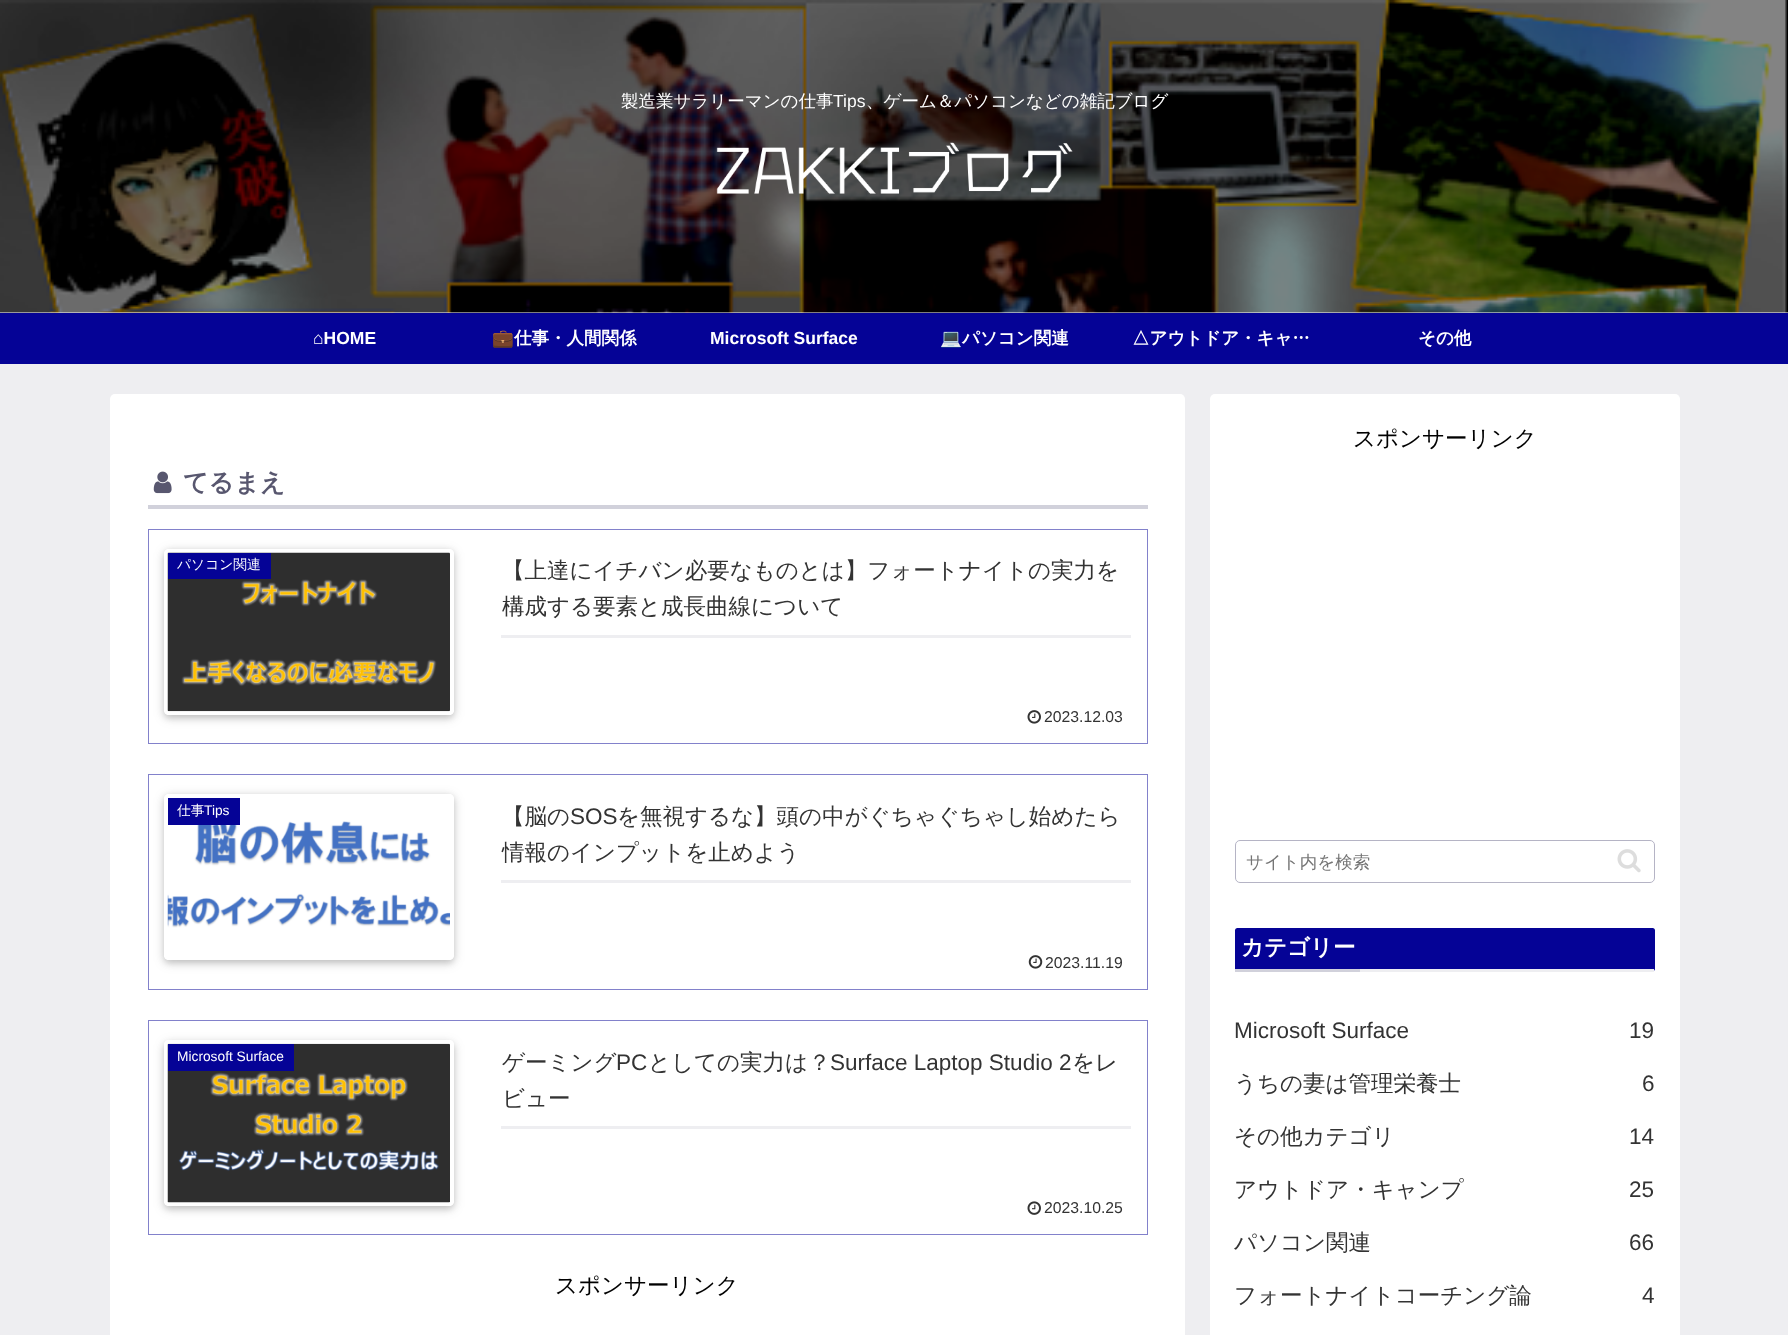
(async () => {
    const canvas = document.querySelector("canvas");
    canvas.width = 1788;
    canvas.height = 1335;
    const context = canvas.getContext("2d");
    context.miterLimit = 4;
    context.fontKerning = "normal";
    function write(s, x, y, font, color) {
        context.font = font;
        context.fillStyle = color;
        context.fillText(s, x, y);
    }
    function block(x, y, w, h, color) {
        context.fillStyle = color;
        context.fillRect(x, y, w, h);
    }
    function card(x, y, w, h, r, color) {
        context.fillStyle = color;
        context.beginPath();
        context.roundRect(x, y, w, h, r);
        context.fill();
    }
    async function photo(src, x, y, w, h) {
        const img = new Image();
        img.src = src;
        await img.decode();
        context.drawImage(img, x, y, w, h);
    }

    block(0, 0, 1788, 1335, "rgb(238, 238, 241)");
    block(0, 313, 1788, 51, "rgb(5, 3, 150)");
    block(0, 312, 1788, 1, "rgb(255, 255, 255)");
    await photo("media/1.png", 0, 0, 1788, 313);
    write("製造業サラリーマンの仕事", 621, 107, "500 17.5px WenQuanYi Zen Hei", "rgb(255, 255, 255)");
    write("Tips", 833, 107, "17.5px Liberation Sans", "rgb(255, 255, 255)");
    write("、ゲーム＆パソコンなどの雑記ブログ", 866, 107, "500 17.5px WenQuanYi Zen Hei", "rgb(255, 255, 255)");
    await photo("media/2.png", 716, 142, 357, 52);
    write("⌂HOME", 313, 344, "bold 17.5px Liberation Sans", "rgb(255, 255, 255)");
    write("💼", 492, 344, "bold 17.5px Noto Color Emoji", "rgb(255, 255, 255)");
    write("仕事・人間関係", 514, 344, "bold 17.5px WenQuanYi Zen Hei", "rgb(255, 255, 255)");
    write("Microsoft Surface", 710, 344, "bold 17.5px Liberation Sans", "rgb(255, 255, 255)");
    write("💻", 940, 344, "bold 17.5px Noto Color Emoji", "rgb(255, 255, 255)");
    write("パソコン関連", 962, 344, "bold 17.5px WenQuanYi Zen Hei", "rgb(255, 255, 255)");
    write("△アウトドア・キャ…", 1132, 344, "bold 17.5px WenQuanYi Zen Hei", "rgb(255, 255, 255)");
    write("その他", 1418, 344, "bold 17.5px WenQuanYi Zen Hei", "rgb(255, 255, 255)");
    card(110, 394, 1075, 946, 5, "rgb(255, 255, 255)");
    block(148, 505, 1000, 4, "rgb(209, 209, 219)");
    await photo("media/3.png", 153, 471, 19, 23);
    write("てるまえ", 183, 491, "bold 25px WenQuanYi Zen Hei", "rgb(88, 87, 111)");
    context.strokeStyle = "rgb(130, 129, 203)";
    context.strokeRect(148.5, 529.5, 999, 214);
    context.save();
    context.beginPath();
    context.moveTo(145, 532);
    context.lineTo(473, 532);
    context.lineTo(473, 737);
    context.lineTo(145, 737);
    context.closePath();
    context.moveTo(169, 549);
    context.lineTo(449, 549);
    context.bezierCurveTo(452, 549, 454, 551, 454, 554);
    context.lineTo(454, 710);
    context.bezierCurveTo(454, 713, 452, 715, 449, 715);
    context.lineTo(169, 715);
    context.bezierCurveTo(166, 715, 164, 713, 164, 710);
    context.lineTo(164, 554);
    context.bezierCurveTo(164, 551, 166, 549, 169, 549);
    context.closePath();
    context.clip("evenodd");
    context.fillStyle = "rgba(0, 0, 0, 0.12)";
    context.filter = "blur(6px)";
    context.beginPath();
    context.roundRect(164, 551, 290, 167, 5);
    context.fill();
    context.filter = "none";
    context.restore();
    context.save();
    context.beginPath();
    context.moveTo(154, 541);
    context.lineTo(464, 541);
    context.lineTo(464, 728);
    context.lineTo(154, 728);
    context.closePath();
    context.moveTo(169, 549);
    context.lineTo(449, 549);
    context.bezierCurveTo(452, 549, 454, 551, 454, 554);
    context.lineTo(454, 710);
    context.bezierCurveTo(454, 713, 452, 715, 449, 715);
    context.lineTo(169, 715);
    context.bezierCurveTo(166, 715, 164, 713, 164, 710);
    context.lineTo(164, 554);
    context.bezierCurveTo(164, 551, 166, 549, 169, 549);
    context.closePath();
    context.clip("evenodd");
    context.fillStyle = "rgba(0, 0, 0, 0.16)";
    context.filter = "blur(3px)";
    context.beginPath();
    context.roundRect(164, 551, 290, 167, 5);
    context.fill();
    context.filter = "none";
    context.restore();
    context.beginPath();
    context.roundRect(166, 551, 286, 162, 3);
    context.strokeStyle = "rgb(255, 255, 255)";
    context.lineWidth = 4;
    context.stroke();
    await photo("media/4.png", 167, 552, 283, 160);
    block(168, 553, 103, 26, "rgb(5, 3, 150)");
    write("パソコン関連", 177, 569, "500 13.75px WenQuanYi Zen Hei", "rgb(255, 255, 255)");
    block(501, 635, 630, 3, "rgb(238, 238, 241)");
    write("【上達にイチバン必要なものとは】フォートナイトの実力を", 502, 578, "500 22.5px WenQuanYi Zen Hei", "rgb(51, 51, 51)");
    write("構成する要素と成長曲線について", 502, 614, "500 22.5px WenQuanYi Zen Hei", "rgb(51, 51, 51)");
    await photo("media/5.png", 1027, 710, 14, 14);
    write("2023.12.03", 1044, 722, "15.75px Liberation Sans", "rgb(51, 51, 51)");
    context.strokeStyle = "rgb(130, 129, 203)";
    context.lineWidth = 1;
    context.strokeRect(148.5, 774.5, 999, 215);
    context.save();
    context.beginPath();
    context.moveTo(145, 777);
    context.lineTo(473, 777);
    context.lineTo(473, 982);
    context.lineTo(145, 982);
    context.closePath();
    context.moveTo(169, 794);
    context.lineTo(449, 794);
    context.bezierCurveTo(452, 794, 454, 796, 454, 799);
    context.lineTo(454, 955);
    context.bezierCurveTo(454, 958, 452, 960, 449, 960);
    context.lineTo(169, 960);
    context.bezierCurveTo(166, 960, 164, 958, 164, 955);
    context.lineTo(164, 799);
    context.bezierCurveTo(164, 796, 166, 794, 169, 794);
    context.closePath();
    context.clip("evenodd");
    context.fillStyle = "rgba(0, 0, 0, 0.12)";
    context.filter = "blur(6px)";
    context.beginPath();
    context.roundRect(164, 796, 290, 167, 5);
    context.fill();
    context.filter = "none";
    context.restore();
    context.save();
    context.beginPath();
    context.moveTo(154, 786);
    context.lineTo(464, 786);
    context.lineTo(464, 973);
    context.lineTo(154, 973);
    context.closePath();
    context.moveTo(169, 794);
    context.lineTo(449, 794);
    context.bezierCurveTo(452, 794, 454, 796, 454, 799);
    context.lineTo(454, 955);
    context.bezierCurveTo(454, 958, 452, 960, 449, 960);
    context.lineTo(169, 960);
    context.bezierCurveTo(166, 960, 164, 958, 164, 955);
    context.lineTo(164, 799);
    context.bezierCurveTo(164, 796, 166, 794, 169, 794);
    context.closePath();
    context.clip("evenodd");
    context.fillStyle = "rgba(0, 0, 0, 0.16)";
    context.filter = "blur(3px)";
    context.beginPath();
    context.roundRect(164, 796, 290, 167, 5);
    context.fill();
    context.filter = "none";
    context.restore();
    context.beginPath();
    context.roundRect(166, 796, 286, 162, 3);
    context.strokeStyle = "rgb(255, 255, 255)";
    context.lineWidth = 4;
    context.stroke();
    await photo("media/6.png", 167, 821, 283, 107);
    block(168, 798, 72, 27, "rgb(5, 3, 150)");
    write("仕事", 177, 815, "500 13.75px WenQuanYi Zen Hei", "rgb(255, 255, 255)");
    write("Tips", 204, 815, "13.75px Liberation Sans", "rgb(255, 255, 255)");
    block(501, 880, 630, 3, "rgb(238, 238, 241)");
    write("【脳の", 502, 824, "500 22.5px WenQuanYi Zen Hei", "rgb(51, 51, 51)");
    write("SOS", 570, 824, "22.5px Liberation Sans", "rgb(51, 51, 51)");
    write("を無視するな】頭の中がぐちゃぐちゃし始めたら", 617, 824, "500 22.5px WenQuanYi Zen Hei", "rgb(51, 51, 51)");
    write("情報のインプットを止めよう", 502, 860, "500 22.5px WenQuanYi Zen Hei", "rgb(51, 51, 51)");
    await photo("media/7.png", 1028, 955, 15, 14);
    write("2023.11.19", 1045, 968, "15.75px Liberation Sans", "rgb(51, 51, 51)");
    context.strokeStyle = "rgb(130, 129, 203)";
    context.lineWidth = 1;
    context.strokeRect(148.5, 1020.5, 999, 214);
    context.save();
    context.beginPath();
    context.moveTo(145, 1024);
    context.lineTo(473, 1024);
    context.lineTo(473, 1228);
    context.lineTo(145, 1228);
    context.closePath();
    context.moveTo(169, 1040);
    context.lineTo(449, 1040);
    context.bezierCurveTo(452, 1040, 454, 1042, 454, 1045);
    context.lineTo(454, 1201);
    context.bezierCurveTo(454, 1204, 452, 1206, 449, 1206);
    context.lineTo(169, 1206);
    context.bezierCurveTo(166, 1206, 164, 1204, 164, 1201);
    context.lineTo(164, 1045);
    context.bezierCurveTo(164, 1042, 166, 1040, 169, 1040);
    context.closePath();
    context.clip("evenodd");
    context.fillStyle = "rgba(0, 0, 0, 0.12)";
    context.filter = "blur(6px)";
    context.beginPath();
    context.roundRect(164, 1043, 290, 166, 5);
    context.fill();
    context.filter = "none";
    context.restore();
    context.save();
    context.beginPath();
    context.moveTo(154, 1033);
    context.lineTo(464, 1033);
    context.lineTo(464, 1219);
    context.lineTo(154, 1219);
    context.closePath();
    context.moveTo(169, 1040);
    context.lineTo(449, 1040);
    context.bezierCurveTo(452, 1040, 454, 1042, 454, 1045);
    context.lineTo(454, 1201);
    context.bezierCurveTo(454, 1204, 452, 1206, 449, 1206);
    context.lineTo(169, 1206);
    context.bezierCurveTo(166, 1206, 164, 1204, 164, 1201);
    context.lineTo(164, 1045);
    context.bezierCurveTo(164, 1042, 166, 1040, 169, 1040);
    context.closePath();
    context.clip("evenodd");
    context.fillStyle = "rgba(0, 0, 0, 0.16)";
    context.filter = "blur(3px)";
    context.beginPath();
    context.roundRect(164, 1043, 290, 166, 5);
    context.fill();
    context.filter = "none";
    context.restore();
    context.beginPath();
    context.roundRect(166, 1042, 286, 162, 3);
    context.strokeStyle = "rgb(255, 255, 255)";
    context.lineWidth = 4;
    context.stroke();
    await photo("media/8.png", 167, 1043, 283, 160);
    block(168, 1044, 126, 27, "rgb(5, 3, 150)");
    write("Microsoft Surface", 177, 1061, "13.75px Liberation Sans", "rgb(255, 255, 255)");
    block(501, 1126, 630, 3, "rgb(238, 238, 241)");
    write("ゲーミング", 502, 1070, "500 22.5px WenQuanYi Zen Hei", "rgb(51, 51, 51)");
    write("PC", 616, 1070, "22.5px Liberation Sans", "rgb(51, 51, 51)");
    write("としての実力は？", 648, 1070, "500 22.5px WenQuanYi Zen Hei", "rgb(51, 51, 51)");
    write("Surface Laptop Studio 2", 830, 1070, "22.5px Liberation Sans", "rgb(51, 51, 51)");
    write("をレ", 1072, 1070, "500 22.5px WenQuanYi Zen Hei", "rgb(51, 51, 51)");
    write("ビュー", 502, 1106, "500 22.5px WenQuanYi Zen Hei", "rgb(51, 51, 51)");
    await photo("media/9.png", 1027, 1201, 14, 14);
    write("2023.10.25", 1044, 1213, "15.75px Liberation Sans", "rgb(51, 51, 51)");
    write("スポンサーリンク", 555, 1293, "500 22.5px WenQuanYi Zen Hei", "rgb(0, 0, 0)");
    card(1210, 394, 470, 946, 5, "rgb(255, 255, 255)");
    write("スポンサーリンク", 1353, 446, "500 22.5px WenQuanYi Zen Hei", "rgb(0, 0, 0)");
    context.beginPath();
    context.roundRect(1235.5, 840.5, 419, 42, 4.5);
    context.strokeStyle = "rgb(181, 180, 197)";
    context.lineWidth = 1;
    context.stroke();
    write("サイト内を検索", 1246, 868, "500 17.5px WenQuanYi Zen Hei", "rgb(117, 117, 117)");
    await photo("media/10.png", 1617, 849, 24, 24);
    card(1235, 928, 420, 43, 2.5, "rgb(5, 3, 150)");
    block(1360, 969, 294, 3, "rgb(238, 238, 241)");
    write("カテゴリー", 1241, 955, "bold 22.5px WenQuanYi Zen Hei", "rgb(255, 255, 255)");
    block(1235, 969, 125, 3, "rgb(209, 209, 219)");
    write("Microsoft Surface", 1234, 1038, "22.5px Liberation Sans", "rgb(51, 51, 51)");
    write("19", 1629, 1038, "22.5px Liberation Sans", "rgb(51, 51, 51)");
    write("うちの妻は管理栄養士", 1234, 1091, "500 22.5px WenQuanYi Zen Hei", "rgb(51, 51, 51)");
    write("6", 1642, 1091, "22.5px Liberation Sans", "rgb(51, 51, 51)");
    write("その他カテゴリ", 1234, 1144, "500 22.5px WenQuanYi Zen Hei", "rgb(51, 51, 51)");
    write("14", 1629, 1144, "22.5px Liberation Sans", "rgb(51, 51, 51)");
    write("アウトドア・キャンプ", 1234, 1197, "500 22.5px WenQuanYi Zen Hei", "rgb(51, 51, 51)");
    write("25", 1629, 1197, "22.5px Liberation Sans", "rgb(51, 51, 51)");
    write("パソコン関連", 1234, 1250, "500 22.5px WenQuanYi Zen Hei", "rgb(51, 51, 51)");
    write("66", 1629, 1250, "22.5px Liberation Sans", "rgb(51, 51, 51)");
    write("フォートナイトコーチング論", 1234, 1303, "500 22.5px WenQuanYi Zen Hei", "rgb(51, 51, 51)");
    write("4", 1642, 1303, "22.5px Liberation Sans", "rgb(51, 51, 51)");
})();
